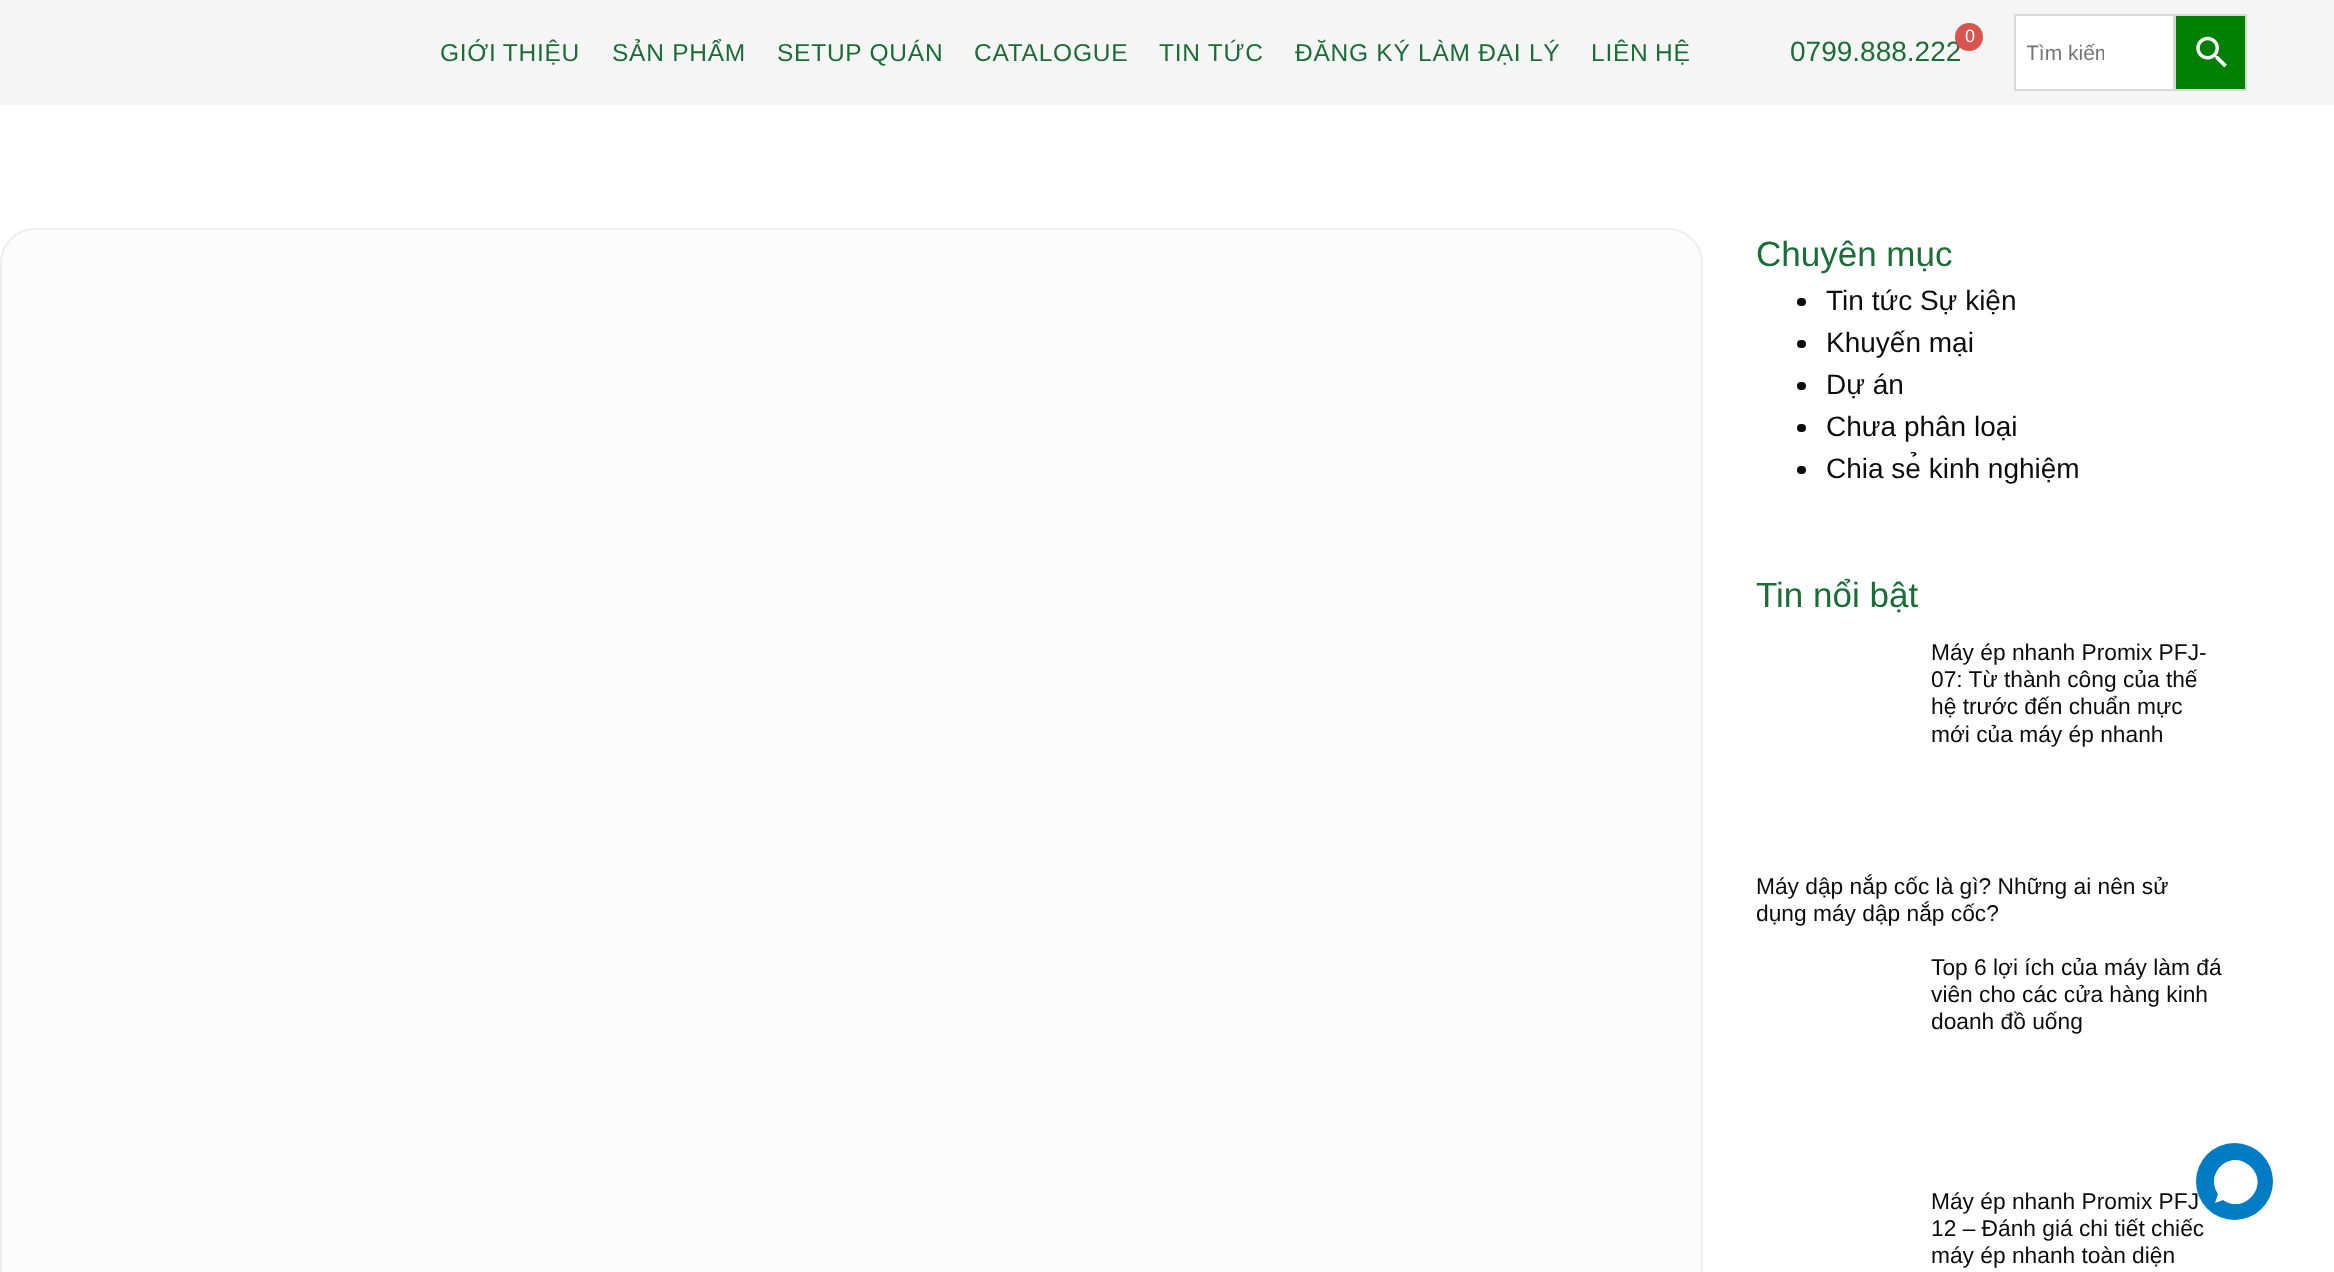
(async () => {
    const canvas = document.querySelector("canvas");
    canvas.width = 2334;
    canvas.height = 1272;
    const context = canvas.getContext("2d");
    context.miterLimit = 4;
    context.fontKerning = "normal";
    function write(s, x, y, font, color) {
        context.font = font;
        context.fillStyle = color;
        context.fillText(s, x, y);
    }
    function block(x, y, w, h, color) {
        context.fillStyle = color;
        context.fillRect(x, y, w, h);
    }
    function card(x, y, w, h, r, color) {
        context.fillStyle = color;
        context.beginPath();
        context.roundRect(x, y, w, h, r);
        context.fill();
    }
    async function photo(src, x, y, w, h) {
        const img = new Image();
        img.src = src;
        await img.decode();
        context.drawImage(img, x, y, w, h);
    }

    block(0, 0, 2334, 1272, "rgb(255, 255, 255)");
    block(0, 0, 2334, 105, "rgb(245, 245, 245)");
    context.letterSpacing = "0.75px";
    context.wordSpacing = "-1px";
    write("GIỚI THIỆU", 440, 61, "24.5px Liberation Sans", "rgb(27, 109, 54)");
    context.wordSpacing = "0px";
    write("SẢN PHẨM", 612, 61, "24.5px Liberation Sans", "rgb(27, 109, 54)");
    write("SETUP QUÁN", 777, 61, "24.5px Liberation Sans", "rgb(27, 109, 54)");
    write("CATALOGUE", 974, 61, "24.5px Liberation Sans", "rgb(27, 109, 54)");
    write("TIN TỨC", 1159, 61, "24.5px Liberation Sans", "rgb(27, 109, 54)");
    write("ĐĂNG KÝ LÀM ĐẠI LÝ", 1295, 61, "24.5px Liberation Sans", "rgb(27, 109, 54)");
    context.wordSpacing = "-1px";
    write("LIÊN HỆ", 1591, 61, "24.5px Liberation Sans", "rgb(27, 109, 54)");
    context.letterSpacing = "0px";
    context.wordSpacing = "0px";
    write("0799.888.222", 1790, 61, "28px Liberation Sans", "rgb(27, 109, 54)");
    context.fillStyle = "rgb(217, 83, 79)";
    context.beginPath();
    context.arc(1969, 37, 14, 0, Math.PI * 2);
    context.fill();
    write("0", 1965, 42, "18px Liberation Sans", "rgb(255, 255, 255)");
    context.fillStyle = "rgb(0, 128, 0)";
    context.beginPath();
    context.rect(2175, 15, 71, 75);
    context.fill();
    context.strokeStyle = "rgb(216, 216, 216)";
    context.lineWidth = 2;
    context.stroke();
    context.fillStyle = "rgb(255, 255, 255)";
    context.beginPath();
    context.rect(2015, 15, 159, 75);
    context.fill();
    context.stroke();
    context.save();
    context.beginPath();
    context.rect(2027, 40, 77, 25);
    context.clip();
    write("Tìm kiếm", 2026, 60, "21px Liberation Sans", "rgb(117, 117, 117)");
    context.restore();
    await photo("media/1.png", 2196, 36, 31, 32);
    context.fillStyle = "rgb(252, 252, 252)";
    context.beginPath();
    context.roundRect(1, 229, 1701, 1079, 34);
    context.fill();
    context.strokeStyle = "rgb(238, 238, 238)";
    context.stroke();
    write("Chuyên mục", 1756, 266, "35px Liberation Sans", "rgb(27, 109, 54)");
    card(1797, 298, 9, 8, 4, "rgb(12, 12, 12)");
    write("Tin tức Sự kiện", 1826, 310, "28px Liberation Sans", "rgb(12, 12, 12)");
    card(1797, 340, 9, 8, 4, "rgb(12, 12, 12)");
    write("Khuyến mại", 1826, 352, "28px Liberation Sans", "rgb(12, 12, 12)");
    card(1797, 382, 9, 8, 4, "rgb(12, 12, 12)");
    write("Dự án", 1826, 394, "28px Liberation Sans", "rgb(12, 12, 12)");
    card(1797, 424, 9, 8, 4, "rgb(12, 12, 12)");
    write("Chưa phân loại", 1826, 436, "28px Liberation Sans", "rgb(12, 12, 12)");
    card(1797, 466, 9, 8, 4, "rgb(12, 12, 12)");
    write("Chia sẻ kinh nghiệm", 1826, 478, "28px Liberation Sans", "rgb(12, 12, 12)");
    write("Tin nổi bật", 1756, 607, "35px Liberation Sans", "rgb(27, 109, 54)");
    write("Máy ép nhanh Promix PFJ-", 1931, 660, "22.75px Liberation Sans", "rgb(12, 12, 12)");
    write("07: Từ thành công của thế", 1931, 687, "22.75px Liberation Sans", "rgb(12, 12, 12)");
    write("hệ trước đến chuẩn mực", 1931, 714, "22.75px Liberation Sans", "rgb(12, 12, 12)");
    write("mới của máy ép nhanh", 1931, 742, "22.75px Liberation Sans", "rgb(12, 12, 12)");
    write("Máy dập nắp cốc là gì? Những ai nên sử", 1756, 894, "22.75px Liberation Sans", "rgb(12, 12, 12)");
    write("dụng máy dập nắp cốc?", 1756, 921, "22.75px Liberation Sans", "rgb(12, 12, 12)");
    write("Top 6 lợi ích của máy làm đá", 1931, 975, "22.75px Liberation Sans", "rgb(12, 12, 12)");
    write("viên cho các cửa hàng kinh", 1931, 1002, "22.75px Liberation Sans", "rgb(12, 12, 12)");
    write("doanh đồ uống", 1931, 1029, "22.75px Liberation Sans", "rgb(12, 12, 12)");
    write("Máy ép nhanh Promix PFJ", 1931, 1209, "22.75px Liberation Sans", "rgb(12, 12, 12)");
    write("12 – Đánh giá chi tiết chiếc", 1931, 1236, "22.75px Liberation Sans", "rgb(12, 12, 12)");
    write("máy ép nhanh toàn diện", 1931, 1263, "22.75px Liberation Sans", "rgb(12, 12, 12)");
    context.fillStyle = "rgb(0, 124, 196)";
    context.beginPath();
    context.arc(2234.5, 1181.5, 38.5, 0, Math.PI * 2);
    context.fill();
    context.save();
    context.beginPath();
    context.rect(2214, 1160, 44, 44);
    context.clip();
    context.fillStyle = "rgb(255, 255, 255)";
    context.beginPath();
    context.moveTo(2236, 1160);
    context.bezierCurveTo(2218, 1160, 2208, 1180, 2218, 1194);
    context.lineTo(2215, 1203);
    context.lineTo(2223, 1200);
    context.bezierCurveTo(2244, 1215, 2270, 1186, 2251, 1167);
    context.bezierCurveTo(2247, 1163, 2241, 1160, 2236, 1160);
    context.closePath();
    context.fill();
    context.restore();
})();
